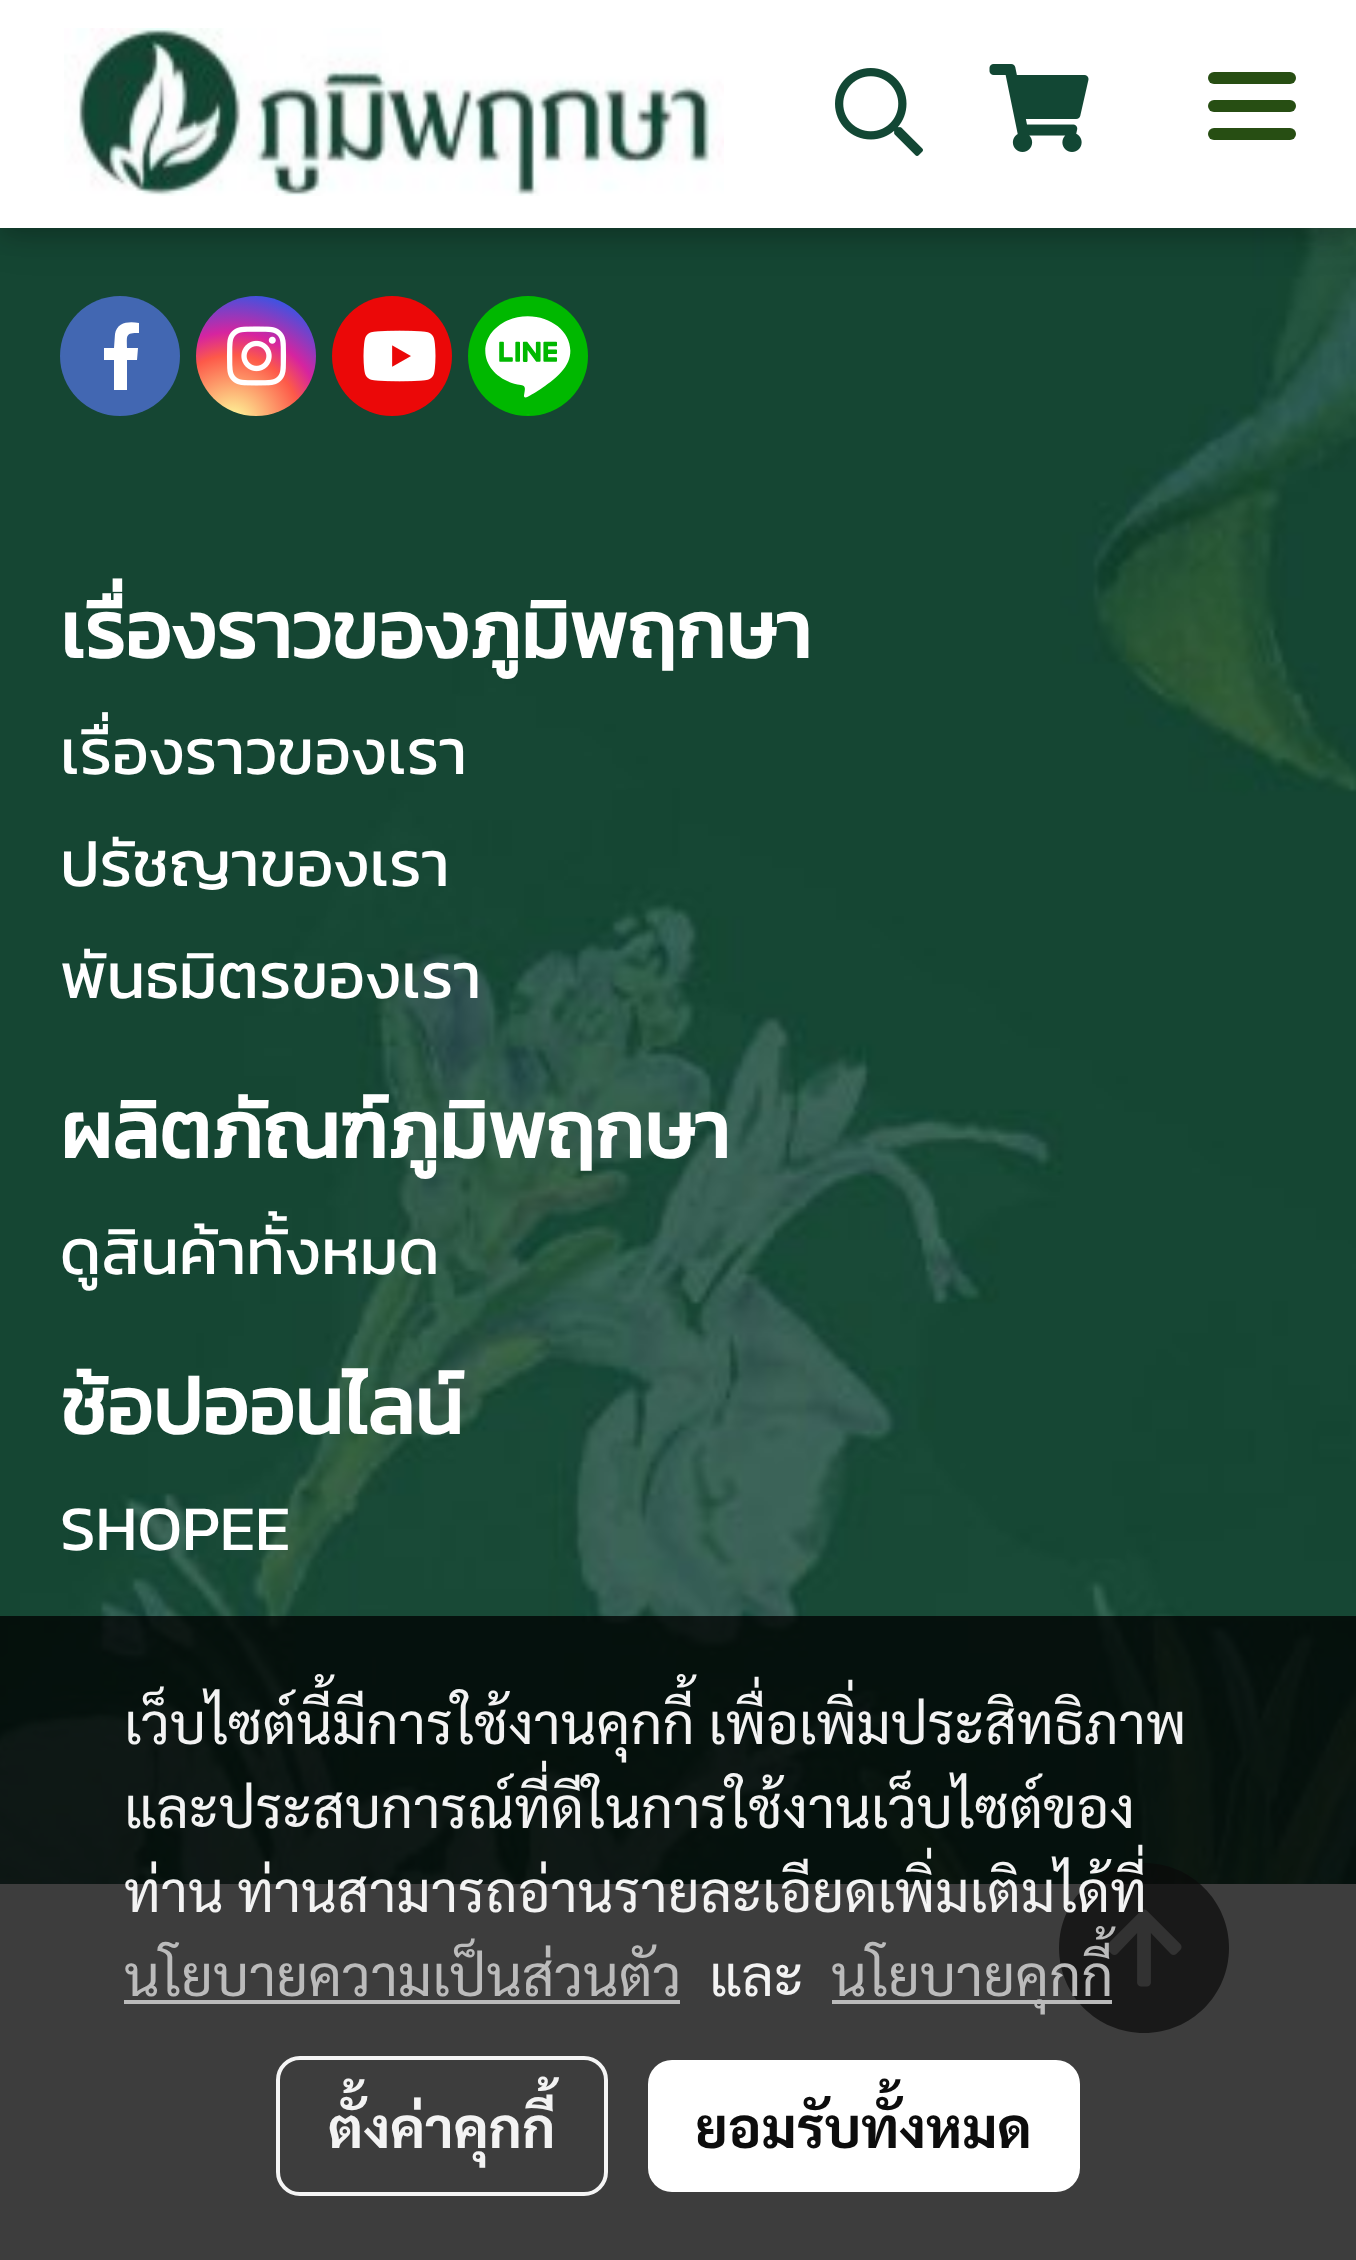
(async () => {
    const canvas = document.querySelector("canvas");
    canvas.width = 1356;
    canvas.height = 2260;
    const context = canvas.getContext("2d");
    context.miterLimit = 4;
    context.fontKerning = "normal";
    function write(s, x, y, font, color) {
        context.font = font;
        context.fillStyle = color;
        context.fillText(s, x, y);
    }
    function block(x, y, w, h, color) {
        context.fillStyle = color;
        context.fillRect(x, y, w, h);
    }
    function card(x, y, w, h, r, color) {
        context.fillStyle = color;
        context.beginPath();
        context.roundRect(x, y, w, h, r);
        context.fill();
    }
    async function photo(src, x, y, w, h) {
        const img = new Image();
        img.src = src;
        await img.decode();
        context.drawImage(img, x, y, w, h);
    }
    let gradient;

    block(0, 0, 1356, 2260, "rgb(255, 255, 255)");
    await photo("media/4.png", 0, 228, 1356, 1656);
    context.fillStyle = "rgb(66, 103, 178)";
    context.beginPath();
    context.arc(120, 356, 60, 0, Math.PI * 2);
    context.fill();
    gradient = context.createRadialGradient(232, 424, 0, 232, 424, 153);
    gradient.addColorStop(0, "rgb(253, 244, 151)");
    gradient.addColorStop(0.05, "rgb(253, 244, 151)");
    gradient.addColorStop(0.45, "rgb(253, 89, 73)");
    gradient.addColorStop(0.6, "rgb(214, 36, 159)");
    gradient.addColorStop(0.9, "rgb(40, 90, 235)");
    context.fillStyle = gradient;
    context.beginPath();
    context.arc(256, 356, 60, 0, Math.PI * 2);
    context.fill();
    context.fillStyle = "rgb(235, 8, 8)";
    context.beginPath();
    context.arc(392, 356, 60, 0, Math.PI * 2);
    context.fill();
    context.fillStyle = "rgb(0, 184, 0)";
    context.beginPath();
    context.arc(528, 356, 60, 0, Math.PI * 2);
    context.fill();
    context.fillStyle = "rgba(0, 0, 0, 0.12)";
    context.filter = "blur(20px)";
    context.beginPath();
    context.rect(0, 8, 1356, 228);
    context.fill();
    context.filter = "none";
    context.fillStyle = "rgba(0, 0, 0, 0.16)";
    context.filter = "blur(10px)";
    context.beginPath();
    context.rect(0, 8, 1356, 228);
    context.fill();
    context.filter = "none";
    block(0, 0, 1356, 228, "rgb(255, 255, 255)");
    await photo("media/1.png", 64, 28, 660, 168);
    await photo("media/2.png", 835, 68, 88, 88);
    await photo("media/3.png", 989, 64, 100, 88);
    card(1208, 100, 88, 12, 6, "rgb(39, 78, 19)");
    card(1208, 72, 88, 12, 6, "rgb(39, 78, 19)");
    card(1208, 128, 88, 12, 6, "rgb(39, 78, 19)");
    context.fillStyle = "rgb(255, 255, 255)";
    context.beginPath();
    context.moveTo(114, 390);
    context.lineTo(114, 360);
    context.lineTo(104, 360);
    context.lineTo(104, 348);
    context.lineTo(114, 348);
    context.lineTo(115, 334);
    context.bezierCurveTo(117, 322, 129, 321, 139, 323);
    context.lineTo(139, 333);
    context.bezierCurveTo(125, 333, 127, 335, 127, 348);
    context.lineTo(138, 348);
    context.lineTo(137, 360);
    context.lineTo(127, 360);
    context.lineTo(127, 390);
    context.fill();
    await photo("media/5.png", 226, 326, 61, 60);
    await photo("media/6.png", 363, 330, 73, 52);
    await photo("media/7.png", 485, 316, 86, 99);
    write("เรื่องราวของภูมิพฤกษา", 60, 658, "bold 80px Kanit", "rgb(255, 255, 255)");
    write("เรื่องราวของเรา", 60, 774, "64px Kanit", "rgb(255, 255, 255)");
    write("ปรัชญาของเรา", 60, 886, "64px Kanit", "rgb(255, 255, 255)");
    write("พันธมิตรของเรา", 60, 998, "64px Kanit", "rgb(255, 255, 255)");
    write("ผลิตภัณฑ์ภูมิพฤกษา", 60, 1158, "bold 80px Kanit", "rgb(255, 255, 255)");
    write("ดูสินค้าทั้งหมด", 60, 1274, "64px Kanit", "rgb(255, 255, 255)");
    write("ช้อปออนไลน์", 60, 1434, "bold 80px Kanit", "rgb(255, 255, 255)");
    write("SHOPEE", 60, 1550, "64px Kanit", "rgb(255, 255, 255)");
    context.fillStyle = "rgba(43, 42, 42, 0.7)";
    context.beginPath();
    context.moveTo(1144, 1863);
    context.bezierCurveTo(1097, 1863, 1059, 1901, 1059, 1948);
    context.bezierCurveTo(1059, 1995, 1097, 2033, 1144, 2033);
    context.bezierCurveTo(1191, 2033, 1229, 1995, 1229, 1948);
    context.bezierCurveTo(1229, 1901, 1191, 1863, 1144, 1863);
    context.closePath();
    context.fill();
    await photo("media/8.png", 1106, 1909, 76, 78);
    block(0, 1616, 1356, 644, "rgba(0, 0, 0, 0.76)");
    write("เว็บไซต์นี้มีการใช้งานคุกกี้ เพื่อเพิ่มประสิทธิภาพ", 124, 1744, "56px Sarabun", "rgb(243, 243, 243)");
    write("และประสบการณ์ที่ดีในการใช้งานเว็บไซต์ของ", 124, 1828, "56px Sarabun", "rgb(243, 243, 243)");
    write("ท่าน ท่านสามารถอ่านรายละเอียดเพิ่มเติมได้ที่", 124, 1912, "56px Sarabun", "rgb(243, 243, 243)");
    write("นโยบายความเป็นส่วนตัว", 124, 1996, "56px Sarabun", "rgb(187, 187, 187)");
    block(124, 2000, 556, 4, "rgba(194, 194, 194, 0.95)");
    write("และ", 709, 1996, "56px Sarabun", "rgb(243, 243, 243)");
    block(832, 2000, 280, 4, "rgba(194, 194, 194, 0.95)");
    write("นโยบายคุกกี้", 831, 1996, "56px Sarabun", "rgb(187, 187, 187)");
    context.beginPath();
    context.roundRect(278, 2058, 328, 136, 22);
    context.strokeStyle = "rgba(255, 255, 255, 0.95)";
    context.lineWidth = 4;
    context.stroke();
    write("ตั้งค่าคุกกี้", 328, 2148, "bold 56px Sarabun", "rgb(243, 243, 243)");
    card(648, 2060, 432, 132, 24, "rgb(255, 255, 255)");
    write("ยอมรับทั้งหมด", 695, 2148, "bold 56px Sarabun", "rgb(13, 13, 13)");
})();
